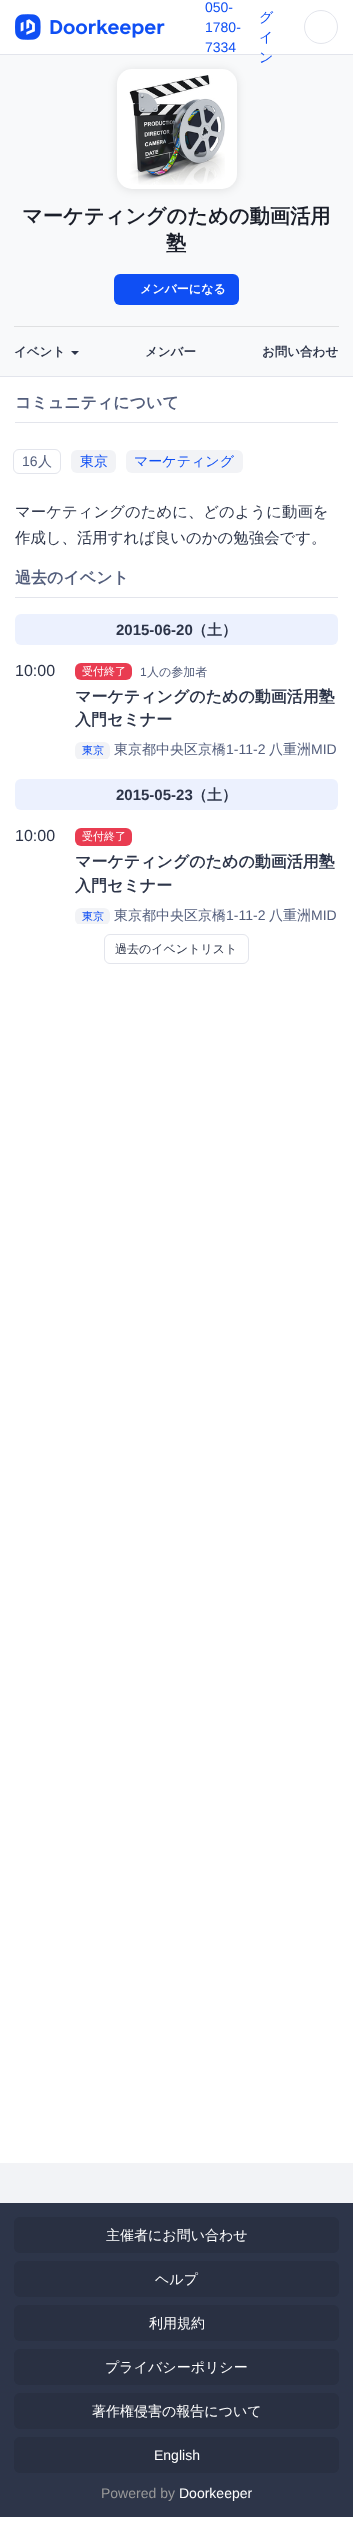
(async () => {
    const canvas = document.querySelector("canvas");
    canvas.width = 353;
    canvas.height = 2526;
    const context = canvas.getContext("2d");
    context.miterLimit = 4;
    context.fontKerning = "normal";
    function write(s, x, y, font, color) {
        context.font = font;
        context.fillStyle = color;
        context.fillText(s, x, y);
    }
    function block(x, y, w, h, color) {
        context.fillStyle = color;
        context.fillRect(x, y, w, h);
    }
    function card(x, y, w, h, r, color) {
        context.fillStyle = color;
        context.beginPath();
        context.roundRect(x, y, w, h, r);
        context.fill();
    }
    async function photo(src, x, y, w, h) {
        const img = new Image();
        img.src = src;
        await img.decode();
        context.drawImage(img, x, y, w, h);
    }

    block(0, 0, 353, 2526, "rgb(255, 255, 255)");
    block(0, 55, 353, 321, "rgb(248, 249, 250)");
    context.fillStyle = "rgba(0, 0, 0, 0.1)";
    context.filter = "blur(5px)";
    context.beginPath();
    context.roundRect(117, 70, 120, 120, 15);
    context.fill();
    context.filter = "none";
    block(0, 54, 353, 1, "rgb(227, 229, 236)");
    await photo("media/1.png", 15, 14, 150, 26);
    write("050-", 205, 12, "14px Liberation Sans", "rgb(15, 79, 244)");
    write("1780-", 205, 32, "14px Liberation Sans", "rgb(15, 79, 244)");
    write("7334", 205, 52, "14px Liberation Sans", "rgb(15, 79, 244)");
    write("グ", 259, 22, "500 14px WenQuanYi Zen Hei", "rgb(15, 79, 244)");
    write("イ", 259, 42, "500 14px WenQuanYi Zen Hei", "rgb(15, 79, 244)");
    write("ン", 259, 62, "500 14px WenQuanYi Zen Hei", "rgb(15, 79, 244)");
    context.beginPath();
    context.arc(321, 27, 16.5, 0, Math.PI * 2);
    context.strokeStyle = "rgb(227, 229, 236)";
    context.stroke();
    block(0, 2163, 353, 40, "rgb(242, 243, 246)");
    block(0, 376, 353, 1, "rgb(227, 229, 236)");
    card(117, 69, 120, 120, 15, "rgb(255, 255, 255)");
    await photo("media/2.png", 129, 75, 96, 110);
    write("マーケティングのための動画活用", 22, 223, "bold 20.25px WenQuanYi Zen Hei", "rgb(26, 30, 41)");
    write("塾", 166, 250, "bold 20.25px WenQuanYi Zen Hei", "rgb(26, 30, 41)");
    card(114, 274, 125, 31, 6, "rgb(15, 79, 244)");
    write("メンバーになる", 140, 293, "bold 12px WenQuanYi Zen Hei", "rgb(255, 255, 255)");
    block(14, 326, 325, 1, "rgb(223, 224, 225)");
    write("イベント", 14, 356, "bold 12.5px WenQuanYi Zen Hei", "rgb(45, 53, 73)");
    context.beginPath();
    context.moveTo(71, 351);
    context.lineTo(79, 351);
    context.lineTo(75, 355);
    context.closePath();
    context.fill();
    write("メンバー", 145, 356, "bold 12.5px WenQuanYi Zen Hei", "rgb(45, 53, 73)");
    write("お問い合わせ", 262, 356, "bold 12.5px WenQuanYi Zen Hei", "rgb(45, 53, 73)");
    block(15, 422, 323, 1, "rgb(227, 229, 236)");
    write("コミュニティについて", 15, 408, "bold 16px WenQuanYi Zen Hei", "rgb(83, 94, 124)");
    context.beginPath();
    context.roundRect(13.5, 449.5, 47, 24, 5.5);
    context.stroke();
    write("16", 22, 466, "14px Liberation Sans", "rgb(83, 94, 124)");
    write("人", 38, 466, "500 14px WenQuanYi Zen Hei", "rgb(83, 94, 124)");
    card(71, 450, 45, 23, 6, "rgb(242, 243, 246)");
    write("東京", 80, 466, "500 14px WenQuanYi Zen Hei", "rgb(15, 79, 244)");
    card(126, 450, 117, 23, 6, "rgb(242, 243, 246)");
    write("マーケティング", 134, 466, "500 14px WenQuanYi Zen Hei", "rgb(15, 79, 244)");
    write("マーケティングのために、どのように動画を", 15, 517, "500 15.4px WenQuanYi Zen Hei", "rgb(45, 53, 73)");
    write("作成し、活用すれば良いのかの勉強会です。", 15, 543, "500 15.4px WenQuanYi Zen Hei", "rgb(45, 53, 73)");
    block(15, 597, 323, 1, "rgb(227, 229, 236)");
    write("過去のイベント", 15, 583, "bold 16px WenQuanYi Zen Hei", "rgb(83, 94, 124)");
    card(15, 614, 323, 31, 6, "rgb(236, 241, 254)");
    write("2015-06-20", 116, 635, "bold 15px Liberation Sans", "rgb(45, 53, 73)");
    write("（土）", 192, 635, "bold 15px WenQuanYi Zen Hei", "rgb(45, 53, 73)");
    write("10:00", 15, 676, "16px Liberation Sans", "rgb(45, 53, 73)");
    card(75, 663, 57, 17, 6, "rgb(233, 60, 81)");
    write("受付終了", 82, 675, "500 11px WenQuanYi Zen Hei", "rgb(255, 255, 255)");
    write("1", 140, 676, "12px Liberation Sans", "rgb(83, 94, 124)");
    write("人の参加者", 147, 676, "500 12px WenQuanYi Zen Hei", "rgb(83, 94, 124)");
    write("マーケティングのための動画活用塾", 75, 702, "bold 16px WenQuanYi Zen Hei", "rgb(45, 53, 73)");
    write("入門セミナー", 75, 725, "bold 16px WenQuanYi Zen Hei", "rgb(45, 53, 73)");
    context.save();
    context.beginPath();
    context.rect(75, 739, 263, 20);
    context.clip();
    card(75, 742, 35, 18, 6, "rgb(242, 243, 246)");
    context.restore();
    write("東京", 82, 754, "500 11px WenQuanYi Zen Hei", "rgb(15, 79, 244)");
    write("東京都中央区京橋", 114, 754, "500 14px WenQuanYi Zen Hei", "rgb(83, 94, 124)");
    write("1-11-2", 226, 754, "14px Liberation Sans", "rgb(83, 94, 124)");
    write("八重洲", 269, 754, "500 14px WenQuanYi Zen Hei", "rgb(83, 94, 124)");
    write("MID", 311, 754, "14px Liberation Sans", "rgb(83, 94, 124)");
    card(15, 779, 323, 31, 6, "rgb(236, 241, 254)");
    write("2015-05-23", 116, 800, "bold 15px Liberation Sans", "rgb(45, 53, 73)");
    write("（土）", 192, 800, "bold 15px WenQuanYi Zen Hei", "rgb(45, 53, 73)");
    write("10:00", 15, 841, "16px Liberation Sans", "rgb(45, 53, 73)");
    card(75, 828, 57, 18, 6, "rgb(233, 60, 81)");
    write("受付終了", 82, 840, "500 11px WenQuanYi Zen Hei", "rgb(255, 255, 255)");
    write("マーケティングのための動画活用塾", 75, 867, "bold 16px WenQuanYi Zen Hei", "rgb(45, 53, 73)");
    write("入門セミナー", 75, 891, "bold 16px WenQuanYi Zen Hei", "rgb(45, 53, 73)");
    context.save();
    context.beginPath();
    context.rect(75, 905, 263, 19);
    context.clip();
    card(75, 908, 35, 17, 6, "rgb(242, 243, 246)");
    context.restore();
    write("東京", 82, 920, "500 11px WenQuanYi Zen Hei", "rgb(15, 79, 244)");
    write("東京都中央区京橋", 114, 920, "500 14px WenQuanYi Zen Hei", "rgb(83, 94, 124)");
    write("1-11-2", 226, 920, "14px Liberation Sans", "rgb(83, 94, 124)");
    write("八重洲", 269, 920, "500 14px WenQuanYi Zen Hei", "rgb(83, 94, 124)");
    write("MID", 311, 920, "14px Liberation Sans", "rgb(83, 94, 124)");
    context.beginPath();
    context.roundRect(104.5, 934.5, 144, 29, 5.5);
    context.stroke();
    write("過去のイベントリスト", 115, 953, "500 12px WenQuanYi Zen Hei", "rgb(45, 53, 73)");
    block(0, 2203, 353, 314, "rgb(45, 53, 73)");
    card(14, 2217, 325, 36, 6, "rgb(41, 48, 66)");
    write("主催者にお問い合わせ", 106, 2240, "500 14px WenQuanYi Zen Hei", "rgb(255, 255, 255)");
    card(14, 2261, 325, 36, 6, "rgb(41, 48, 66)");
    write("ヘルプ", 155, 2284, "500 14px WenQuanYi Zen Hei", "rgb(255, 255, 255)");
    card(14, 2305, 325, 36, 6, "rgb(41, 48, 66)");
    write("利用規約", 149, 2328, "500 14px WenQuanYi Zen Hei", "rgb(255, 255, 255)");
    card(14, 2349, 325, 36, 6, "rgb(41, 48, 66)");
    write("プライバシーポリシー", 105, 2372, "500 14px WenQuanYi Zen Hei", "rgb(255, 255, 255)");
    card(14, 2393, 325, 36, 6, "rgb(41, 48, 66)");
    write("著作権侵害の報告について", 92, 2416, "500 14px WenQuanYi Zen Hei", "rgb(255, 255, 255)");
    card(14, 2437, 325, 36, 6, "rgb(41, 48, 66)");
    write("English", 154, 2460, "14px Liberation Sans", "rgb(255, 255, 255)");
    write("Powered by", 101, 2498, "14px Liberation Sans", "rgb(153, 153, 153)");
    write("Doorkeeper", 179, 2498, "14px Liberation Sans", "rgb(255, 255, 255)");
})();
